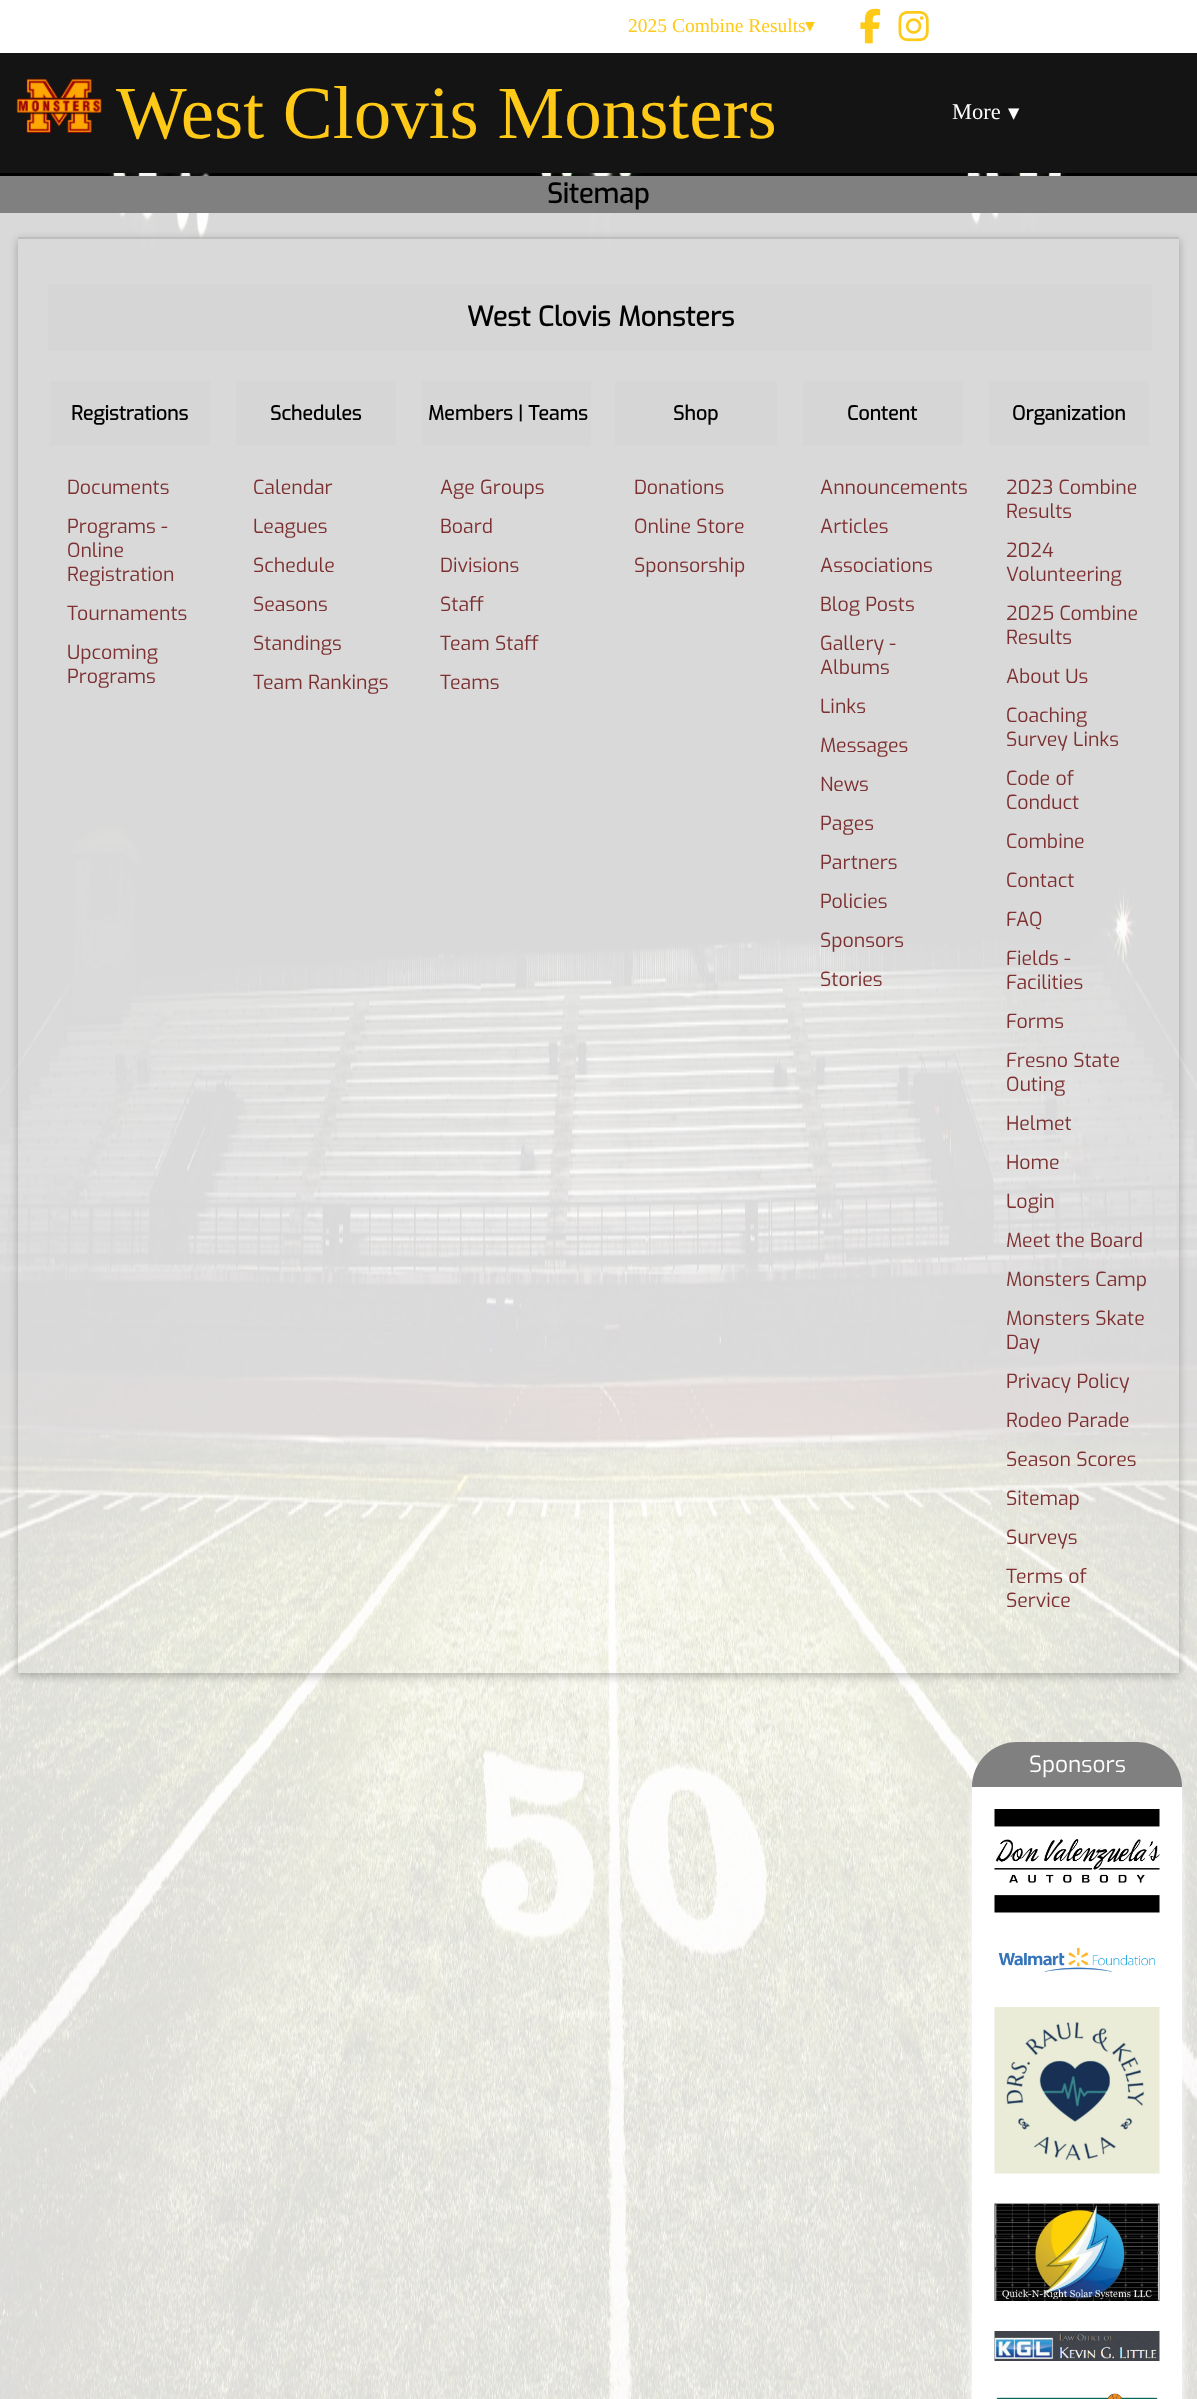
(async () => {
    const canvas = document.querySelector("canvas");
    canvas.width = 1197;
    canvas.height = 2399;
    const context = canvas.getContext("2d");
    context.miterLimit = 4;
    context.fontKerning = "normal";
    function write(s, x, y, font, color) {
        context.font = font;
        context.fillStyle = color;
        context.fillText(s, x, y);
    }
    function block(x, y, w, h, color) {
        context.fillStyle = color;
        context.fillRect(x, y, w, h);
    }
    async function photo(src, x, y, w, h) {
        const img = new Image();
        img.src = src;
        await img.decode();
        context.drawImage(img, x, y, w, h);
    }

    block(0, 0, 1197, 2399, "rgb(255, 255, 255)");
    write("2025 Combine Results", 628, 32, "19.5px Liberation Serif", "rgb(255, 201, 23)");
    write("▾", 805, 32, "19.5px DejaVu Sans", "rgb(255, 201, 23)");
    await photo("media/1.png", 860, 8, 21, 36);
    await photo("media/2.png", 898, 11, 31, 31);
    block(0, 53, 1197, 120, "rgb(20, 20, 20)");
    await photo("media/3.png", 16, 78, 86, 55);
    write("West Clovis Monsters", 116, 138, "75px Liberation Serif", "rgb(255, 201, 23)");
    write("More", 952, 119, "22.5px Liberation Serif", "rgb(255, 255, 255)");
    write("▾", 1008, 120, "22.5px DejaVu Sans", "rgb(255, 255, 255)");
    await photo("media/4.png", 0, 173, 1197, 2226);
    block(0, 176, 1197, 37, "rgb(128, 128, 128)");
    write("Sitemap", 547, 203, "bold 27px Exo", "rgb(0, 0, 0)");
    context.save();
    context.beginPath();
    context.moveTo(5, 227);
    context.lineTo(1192, 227);
    context.lineTo(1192, 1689);
    context.lineTo(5, 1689);
    context.closePath();
    context.moveTo(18, 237);
    context.lineTo(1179, 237);
    context.lineTo(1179, 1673);
    context.lineTo(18, 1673);
    context.closePath();
    context.clip("evenodd");
    context.fillStyle = "rgba(0, 0, 0, 0.26)";
    context.filter = "blur(4px)";
    context.beginPath();
    context.rect(18, 240, 1161, 1436);
    context.fill();
    context.filter = "none";
    context.restore();
    block(18, 237, 1161, 2, "rgba(0, 0, 0, 0.12)");
    block(48, 284, 1104, 67, "rgb(214, 214, 214)");
    write("West Clovis Monsters", 467, 326, "bold 27px Exo", "rgb(0, 0, 0)");
    block(50, 381, 160, 65, "rgb(214, 214, 214)");
    write("Registrations", 71, 420, "bold 19.5px Exo", "rgb(0, 0, 0)");
    write("Documents", 67, 494, "19.5px Exo", "rgb(125, 48, 49)");
    write("Programs -", 67, 533, "19.5px Exo", "rgb(125, 48, 49)");
    write("Online", 67, 557, "19.5px Exo", "rgb(125, 48, 49)");
    write("Registration", 67, 581, "19.5px Exo", "rgb(125, 48, 49)");
    write("Tournaments", 67, 620, "19.5px Exo", "rgb(125, 48, 49)");
    write("Upcoming", 67, 659, "19.5px Exo", "rgb(125, 48, 49)");
    write("Programs", 67, 683, "19.5px Exo", "rgb(125, 48, 49)");
    block(236, 381, 160, 65, "rgb(214, 214, 214)");
    write("Schedules", 270, 420, "bold 19.5px Exo", "rgb(0, 0, 0)");
    write("Calendar", 253, 494, "19.5px Exo", "rgb(125, 48, 49)");
    write("Leagues", 253, 533, "19.5px Exo", "rgb(125, 48, 49)");
    write("Schedule", 253, 572, "19.5px Exo", "rgb(125, 48, 49)");
    write("Seasons", 253, 611, "19.5px Exo", "rgb(125, 48, 49)");
    write("Standings", 253, 650, "19.5px Exo", "rgb(125, 48, 49)");
    write("Team Rankings", 253, 689, "19.5px Exo", "rgb(125, 48, 49)");
    block(422, 381, 169, 65, "rgb(214, 214, 214)");
    write("Members | Teams", 428, 420, "bold 19.5px Exo", "rgb(0, 0, 0)");
    write("Age Groups", 440, 494, "19.5px Exo", "rgb(125, 48, 49)");
    write("Board", 440, 533, "19.5px Exo", "rgb(125, 48, 49)");
    write("Divisions", 440, 572, "19.5px Exo", "rgb(125, 48, 49)");
    write("Staff", 440, 611, "19.5px Exo", "rgb(125, 48, 49)");
    write("Team Staff", 440, 650, "19.5px Exo", "rgb(125, 48, 49)");
    write("Teams", 440, 689, "19.5px Exo", "rgb(125, 48, 49)");
    block(615, 381, 162, 65, "rgb(214, 214, 214)");
    write("Shop", 673, 420, "bold 19.5px Exo", "rgb(0, 0, 0)");
    write("Donations", 634, 494, "19.5px Exo", "rgb(125, 48, 49)");
    write("Online Store", 634, 533, "19.5px Exo", "rgb(125, 48, 49)");
    write("Sponsorship", 634, 572, "19.5px Exo", "rgb(125, 48, 49)");
    block(803, 381, 160, 65, "rgb(214, 214, 214)");
    write("Content", 847, 420, "bold 19.5px Exo", "rgb(0, 0, 0)");
    write("Announcements", 820, 494, "19.5px Exo", "rgb(125, 48, 49)");
    write("Articles", 820, 533, "19.5px Exo", "rgb(125, 48, 49)");
    write("Associations", 820, 572, "19.5px Exo", "rgb(125, 48, 49)");
    write("Blog Posts", 820, 611, "19.5px Exo", "rgb(125, 48, 49)");
    write("Gallery -", 820, 650, "19.5px Exo", "rgb(125, 48, 49)");
    write("Albums", 820, 674, "19.5px Exo", "rgb(125, 48, 49)");
    write("Links", 820, 713, "19.5px Exo", "rgb(125, 48, 49)");
    write("Messages", 820, 752, "19.5px Exo", "rgb(125, 48, 49)");
    write("News", 820, 791, "19.5px Exo", "rgb(125, 48, 49)");
    write("Pages", 820, 830, "19.5px Exo", "rgb(125, 48, 49)");
    write("Partners", 820, 869, "19.5px Exo", "rgb(125, 48, 49)");
    write("Policies", 820, 908, "19.5px Exo", "rgb(125, 48, 49)");
    write("Sponsors", 820, 947, "19.5px Exo", "rgb(125, 48, 49)");
    write("Stories", 820, 986, "19.5px Exo", "rgb(125, 48, 49)");
    block(989, 381, 160, 65, "rgb(214, 214, 214)");
    write("Organization", 1012, 420, "bold 19.5px Exo", "rgb(0, 0, 0)");
    write("2023 Combine", 1006, 494, "19.5px Exo", "rgb(125, 48, 49)");
    write("Results", 1006, 518, "19.5px Exo", "rgb(125, 48, 49)");
    write("2024", 1006, 557, "19.5px Exo", "rgb(125, 48, 49)");
    write("Volunteering", 1006, 581, "19.5px Exo", "rgb(125, 48, 49)");
    write("2025 Combine", 1006, 620, "19.5px Exo", "rgb(125, 48, 49)");
    write("Results", 1006, 644, "19.5px Exo", "rgb(125, 48, 49)");
    write("About Us", 1006, 683, "19.5px Exo", "rgb(125, 48, 49)");
    write("Coaching", 1006, 722, "19.5px Exo", "rgb(125, 48, 49)");
    write("Survey Links", 1006, 746, "19.5px Exo", "rgb(125, 48, 49)");
    write("Code of", 1006, 785, "19.5px Exo", "rgb(125, 48, 49)");
    write("Conduct", 1006, 809, "19.5px Exo", "rgb(125, 48, 49)");
    write("Combine", 1006, 848, "19.5px Exo", "rgb(125, 48, 49)");
    write("Contact", 1006, 887, "19.5px Exo", "rgb(125, 48, 49)");
    write("FAQ", 1006, 926, "19.5px Exo", "rgb(125, 48, 49)");
    write("Fields -", 1006, 965, "19.5px Exo", "rgb(125, 48, 49)");
    write("Facilities", 1006, 989, "19.5px Exo", "rgb(125, 48, 49)");
    write("Forms", 1006, 1028, "19.5px Exo", "rgb(125, 48, 49)");
    write("Fresno State", 1006, 1067, "19.5px Exo", "rgb(125, 48, 49)");
    write("Outing", 1006, 1091, "19.5px Exo", "rgb(125, 48, 49)");
    write("Helmet", 1006, 1130, "19.5px Exo", "rgb(125, 48, 49)");
    write("Home", 1006, 1169, "19.5px Exo", "rgb(125, 48, 49)");
    write("Login", 1006, 1208, "19.5px Exo", "rgb(125, 48, 49)");
    write("Meet the Board", 1006, 1247, "19.5px Exo", "rgb(125, 48, 49)");
    write("Monsters Camp", 1006, 1286, "19.5px Exo", "rgb(125, 48, 49)");
    write("Monsters Skate", 1006, 1325, "19.5px Exo", "rgb(125, 48, 49)");
    write("Day", 1006, 1349, "19.5px Exo", "rgb(125, 48, 49)");
    write("Privacy Policy", 1006, 1388, "19.5px Exo", "rgb(125, 48, 49)");
    write("Rodeo Parade", 1006, 1427, "19.5px Exo", "rgb(125, 48, 49)");
    write("Season Scores", 1006, 1466, "19.5px Exo", "rgb(125, 48, 49)");
    write("Sitemap", 1006, 1505, "19.5px Exo", "rgb(125, 48, 49)");
    write("Surveys", 1006, 1544, "19.5px Exo", "rgb(125, 48, 49)");
    write("Terms of", 1006, 1583, "19.5px Exo", "rgb(125, 48, 49)");
    write("Service", 1006, 1607, "19.5px Exo", "rgb(125, 48, 49)");
    context.fillStyle = "rgb(255, 255, 255)";
    context.filter = "blur(5px)";
    context.beginPath();
    context.roundRect(972, 1749, 210, 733, 68);
    context.fill();
    context.filter = "none";
    context.fillStyle = "rgb(128, 128, 128)";
    context.beginPath();
    context.roundRect(972, 1742, 210, 45, [45, 45, 0, 0]);
    context.fill();
    write("Sponsors", 1029, 1772, "22.5px Exo", "rgb(255, 255, 255)");
    block(972, 1787, 210, 612, "rgb(255, 255, 255)");
    await photo("media/5.png", 994, 1809, 166, 104);
    await photo("media/6.png", 998, 1947, 157, 25);
    await photo("media/7.png", 994, 2007, 166, 167);
    await photo("media/8.png", 994, 2203, 166, 98);
    await photo("media/9.png", 994, 2331, 166, 30);
    await photo("media/10.png", 996, 2393, 162, 6);
})();
